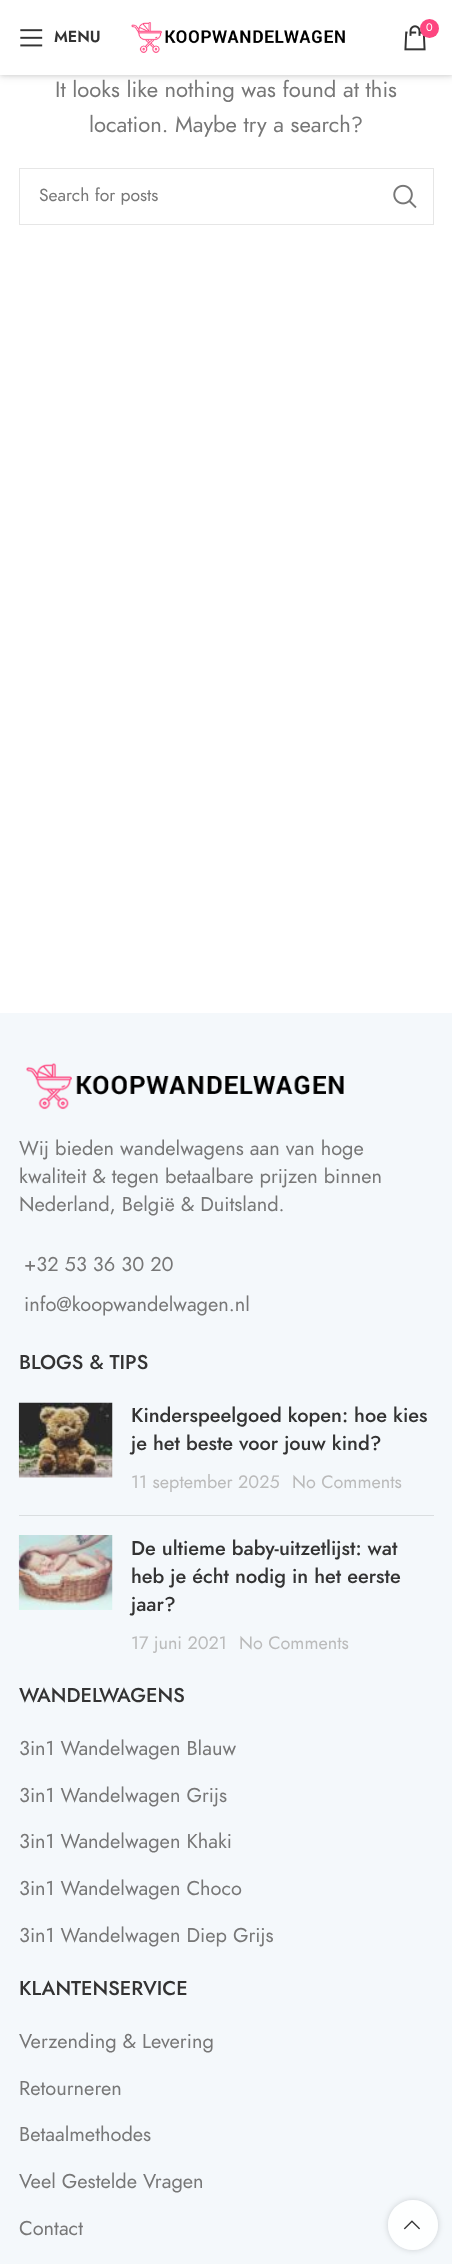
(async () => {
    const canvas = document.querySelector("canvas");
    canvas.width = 452;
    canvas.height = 2264;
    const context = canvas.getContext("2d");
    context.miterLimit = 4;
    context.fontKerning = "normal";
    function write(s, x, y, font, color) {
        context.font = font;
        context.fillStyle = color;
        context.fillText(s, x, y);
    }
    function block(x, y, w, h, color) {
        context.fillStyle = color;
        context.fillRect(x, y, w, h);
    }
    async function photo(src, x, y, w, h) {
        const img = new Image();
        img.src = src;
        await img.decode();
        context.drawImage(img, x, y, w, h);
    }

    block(0, 0, 452, 2264, "rgb(255, 255, 255)");
    context.fillStyle = "rgba(0, 0, 0, 0.1)";
    context.filter = "blur(2px)";
    context.beginPath();
    context.rect(0, 1, 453, 75);
    context.fill();
    context.filter = "none";
    context.filter = "blur(5px)";
    context.beginPath();
    context.rect(0, 1, 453, 75);
    context.fill();
    context.filter = "none";
    block(0, 0, 452, 75, "rgb(255, 255, 255)");
    await photo("media/1.png", 131, 22, 214, 31);
    await photo("media/2.png", 404, 25, 22, 26);
    context.fillStyle = "rgb(253, 70, 128)";
    context.beginPath();
    context.arc(429.5, 28.5, 9.5, 0, Math.PI * 2);
    context.fill();
    write("0", 426, 31, "11px Jost", "rgb(255, 255, 255)");
    await photo("media/3.png", 20, 29, 23, 18);
    write("MENU", 54, 42, "600 16px Jost", "rgb(51, 51, 51)");
    write("It looks like nothing was found at this", 55, 97, "22px Jost", "rgb(119, 119, 119)");
    write("location. Maybe try a search?", 89, 132, "22px Jost", "rgb(119, 119, 119)");
    context.strokeStyle = "rgb(230, 230, 230)";
    context.strokeRect(19.5, 168.5, 414, 56);
    write("Search for posts", 39, 201, "17.5px Jost", "rgb(119, 119, 119)");
    await photo("media/4.png", 393, 184, 24, 25);
    block(0, 1013, 452, 1251, "rgb(244, 248, 251)");
    await photo("media/5.png", 26, 1063, 318, 47);
    write("Wij bieden wandelwagens aan van hoge", 19, 1155, "20px Jost", "rgb(119, 119, 119)");
    write("kwaliteit & tegen betaalbare prijzen binnen", 19, 1183, "20px Jost", "rgb(119, 119, 119)");
    write("Nederland, België & Duitsland.", 19, 1211, "20px Jost", "rgb(119, 119, 119)");
    write("+32 53 36 30 20", 24, 1271, "20px Jost", "rgb(119, 119, 119)");
    write("info@koopwandelwagen.nl", 24, 1311, "20px Jost", "rgb(119, 119, 119)");
    write("BLOGS & TIPS", 19, 1369, "500 20px Jost", "rgb(51, 51, 51)");
    block(19, 1515, 415, 1, "rgb(218, 222, 224)");
    await photo("media/6.png", 18, 1402, 95, 76);
    write("Kinderspeelgoed kopen: hoe kies", 131, 1422, "500 20px Jost", "rgb(51, 51, 51)");
    write("je het beste voor jouw kind?", 131, 1450, "500 20px Jost", "rgb(51, 51, 51)");
    write("11 september 2025", 131, 1488, "18px Jost", "rgb(187, 187, 187)");
    write("No Comments", 292, 1488, "18px Jost", "rgb(187, 187, 187)");
    await photo("media/7.png", 18, 1535, 95, 75);
    write("De ultieme baby-uitzetlijst: wat", 131, 1555, "500 20px Jost", "rgb(51, 51, 51)");
    write("heb je écht nodig in het eerste", 131, 1583, "500 20px Jost", "rgb(51, 51, 51)");
    write("jaar?", 131, 1611, "500 20px Jost", "rgb(51, 51, 51)");
    write("17 juni 2021", 131, 1649, "18px Jost", "rgb(187, 187, 187)");
    write("No Comments", 239, 1649, "18px Jost", "rgb(187, 187, 187)");
    write("WANDELWAGENS", 19, 1702, "500 20px Jost", "rgb(51, 51, 51)");
    write("3in1 Wandelwagen Blauw", 19, 1755, "20px Jost", "rgb(119, 119, 119)");
    write("3in1 Wandelwagen Grijs", 19, 1802, "20px Jost", "rgb(119, 119, 119)");
    write("3in1 Wandelwagen Khaki", 19, 1848, "20px Jost", "rgb(119, 119, 119)");
    write("3in1 Wandelwagen Choco", 19, 1895, "20px Jost", "rgb(119, 119, 119)");
    write("3in1 Wandelwagen Diep Grijs", 19, 1942, "20px Jost", "rgb(119, 119, 119)");
    write("KLANTENSERVICE", 19, 1995, "500 20px Jost", "rgb(51, 51, 51)");
    write("Verzending & Levering", 19, 2048, "20px Jost", "rgb(119, 119, 119)");
    write("Retourneren", 19, 2095, "20px Jost", "rgb(119, 119, 119)");
    write("Betaalmethodes", 19, 2141, "20px Jost", "rgb(119, 119, 119)");
    write("Veel Gestelde Vragen", 19, 2188, "20px Jost", "rgb(119, 119, 119)");
    write("Contact", 19, 2235, "20px Jost", "rgb(119, 119, 119)");
    context.save();
    context.beginPath();
    context.moveTo(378, 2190);
    context.lineTo(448, 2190);
    context.lineTo(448, 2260);
    context.lineTo(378, 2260);
    context.closePath();
    context.moveTo(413, 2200);
    context.bezierCurveTo(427, 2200, 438, 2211, 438, 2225);
    context.bezierCurveTo(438, 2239, 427, 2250, 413, 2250);
    context.bezierCurveTo(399, 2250, 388, 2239, 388, 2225);
    context.bezierCurveTo(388, 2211, 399, 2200, 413, 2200);
    context.closePath();
    context.clip("evenodd");
    context.fillStyle = "rgba(0, 0, 0, 0.17)";
    context.filter = "blur(3px)";
    context.beginPath();
    context.roundRect(388, 2200, 50, 50, 25);
    context.fill();
    context.filter = "none";
    context.restore();
    context.fillStyle = "rgba(255, 255, 255, 0.9)";
    context.beginPath();
    context.arc(413, 2225, 25, 0, Math.PI * 2);
    context.fill();
    await photo("media/8.png", 403, 2220, 17, 10);
})();
